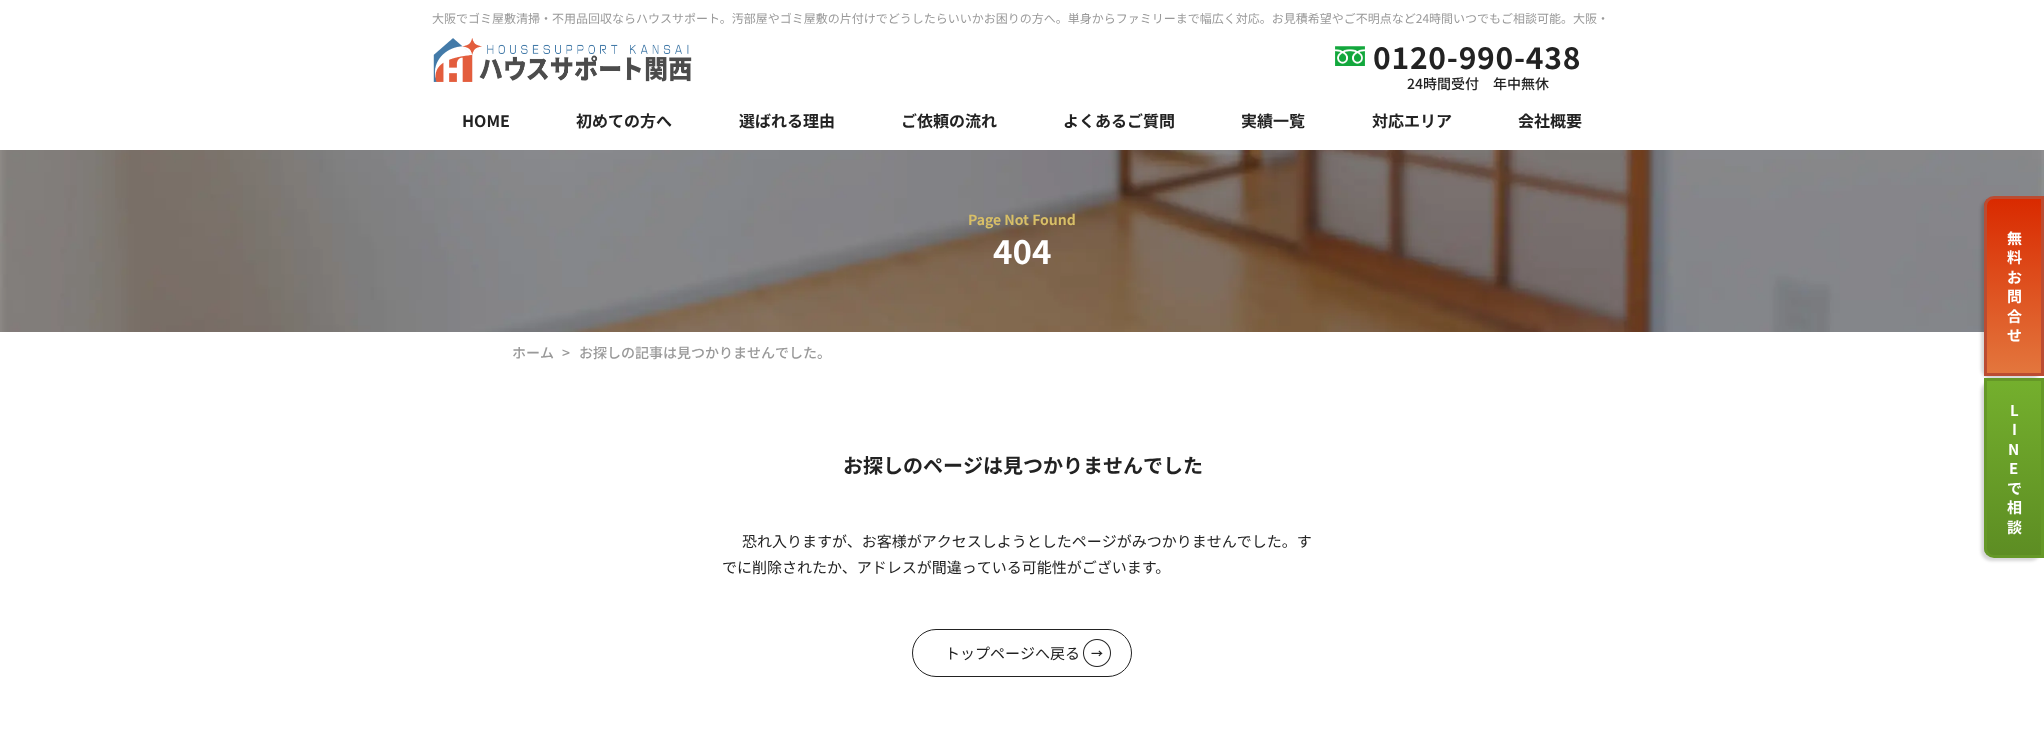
(async () => {
    const canvas = document.querySelector("canvas");
    canvas.width = 2044;
    canvas.height = 754;
    const context = canvas.getContext("2d");
    context.miterLimit = 4;
    context.fontKerning = "normal";
    function write(s, x, y, font, color) {
        context.font = font;
        context.fillStyle = color;
        context.fillText(s, x, y);
    }
    function block(x, y, w, h, color) {
        context.fillStyle = color;
        context.fillRect(x, y, w, h);
    }
    async function photo(src, x, y, w, h) {
        const img = new Image();
        img.src = src;
        await img.decode();
        context.drawImage(img, x, y, w, h);
    }
    let gradient;

    block(0, 0, 2044, 754, "rgb(255, 255, 255)");
    write("大阪でゴミ屋敷清掃・不用品回収ならハウスサポート。汚部屋やゴミ屋敷の片付けでどうしたらいいかお困りの方へ。単身からファミリーまで幅広く対応。お見積希望やご不明点など24時間いつでもご相談可能。大阪・", 432, 23, "12px Noto Sans JP", "rgb(153, 153, 153)");
    await photo("media/1.png", 433, 38, 259, 44);
    await photo("media/2.png", 1335, 46, 30, 20);
    context.letterSpacing = "0.75px";
    write("0120-990-438", 1373, 69, "bold 30px Noto Sans JP", "rgb(34, 34, 34)");
    context.letterSpacing = "0px";
    write("24時間受付　年中無休", 1407, 89, "500 14px Noto Sans JP", "rgb(34, 34, 34)");
    write("HOME", 462, 127, "bold 16px Noto Sans JP", "rgb(34, 34, 34)");
    write("初めての方へ", 576, 127, "bold 16px Noto Sans JP", "rgb(34, 34, 34)");
    write("選ばれる理由", 739, 127, "bold 16px Noto Sans JP", "rgb(34, 34, 34)");
    write("ご依頼の流れ", 901, 127, "bold 16px Noto Sans JP", "rgb(34, 34, 34)");
    write("よくあるご質問", 1063, 127, "bold 16px Noto Sans JP", "rgb(34, 34, 34)");
    write("実績一覧", 1241, 127, "bold 16px Noto Sans JP", "rgb(34, 34, 34)");
    write("対応エリア", 1372, 127, "bold 16px Noto Sans JP", "rgb(34, 34, 34)");
    write("会社概要", 1518, 127, "bold 16px Noto Sans JP", "rgb(34, 34, 34)");
    await photo("media/3.png", 0, 150, 2044, 182);
    write("Page Not Found", 968, 225, "bold 14px Noto Sans JP", "rgb(216, 191, 103)");
    write("404", 993, 264, "bold 33px Noto Sans JP", "rgb(255, 255, 255)");
    write("ホーム", 512, 358, "500 14px Noto Sans JP", "rgb(153, 153, 153)");
    write(">", 562, 358, "500 14px Noto Sans JP", "rgb(153, 153, 153)");
    write("お探しの記事は見つかりませんでした。", 579, 358, "500 14px Noto Sans JP", "rgb(153, 153, 153)");
    write("お探しのページは見つかりませんでした", 843, 473, "bold 20px Noto Sans JP", "rgb(34, 34, 34)");
    write("恐れ入りますが、お客様がアクセスしようとしたページがみつかりませんでした。す", 742, 547, "15px Noto Sans JP", "rgb(34, 34, 34)");
    write("でに削除されたか、アドレスが間違っている可能性がございます。", 722, 573, "15px Noto Sans JP", "rgb(34, 34, 34)");
    context.beginPath();
    context.roundRect(912.5, 629.5, 219, 47, 23.5);
    context.strokeStyle = "rgb(34, 34, 34)";
    context.stroke();
    write("トップページへ戻る", 945, 659, "15px Noto Sans JP", "rgb(34, 34, 34)");
    await photo("media/4.png", 1083, 639, 28, 28);
    context.fillStyle = "rgba(0, 0, 0, 0.16)";
    context.filter = "blur(1.5px)";
    context.beginPath();
    context.roundRect(1981, 199, 60, 180, 10);
    context.fill();
    context.filter = "none";
    context.save();
    context.beginPath();
    context.roundRect(1984, 196, 60, 180, [10, 0, 0, 0]);
    context.clip();
    gradient = context.createLinearGradient(2014, 199, 2014, 373);
    gradient.addColorStop(0, "rgb(217, 42, 0)");
    gradient.addColorStop(1, "rgb(227, 118, 61)");
    context.fillStyle = gradient;
    context.fillRect(1984, 199, 57, 174);
    context.restore();
    context.beginPath();
    context.roundRect(1985.5, 197.5, 57, 177, [8.5, 0, 0, 0]);
    context.strokeStyle = "rgb(187, 76, 50)";
    context.lineWidth = 3;
    context.stroke();
    write("無", 2007, 244, "bold 15px Noto Sans JP", "rgb(255, 255, 255)");
    write("料", 2007, 263, "bold 15px Noto Sans JP", "rgb(255, 255, 255)");
    write("お", 2007, 283, "bold 15px Noto Sans JP", "rgb(255, 255, 255)");
    write("問", 2007, 302, "bold 15px Noto Sans JP", "rgb(255, 255, 255)");
    write("合", 2007, 322, "bold 15px Noto Sans JP", "rgb(255, 255, 255)");
    write("せ", 2007, 341, "bold 15px Noto Sans JP", "rgb(255, 255, 255)");
    context.fillStyle = "rgba(0, 0, 0, 0.16)";
    context.filter = "blur(1.5px)";
    context.beginPath();
    context.roundRect(1981, 381, 60, 180, 10);
    context.fill();
    context.filter = "none";
    context.save();
    context.beginPath();
    context.roundRect(1984, 378, 60, 180, [0, 0, 0, 10]);
    context.clip();
    gradient = context.createLinearGradient(2014, 381, 2014, 555);
    gradient.addColorStop(0, "rgb(116, 175, 45)");
    gradient.addColorStop(1, "rgb(93, 141, 35)");
    context.fillStyle = gradient;
    context.fillRect(1984, 381, 57, 174);
    context.restore();
    context.beginPath();
    context.roundRect(1985.5, 379.5, 57, 177, [0, 0, 0, 8.5]);
    context.strokeStyle = "rgb(101, 152, 39)";
    context.stroke();
    write("L", 2010, 416, "bold 15px Noto Sans JP", "rgb(255, 255, 255)");
    write("I", 2012, 435, "bold 15px Noto Sans JP", "rgb(255, 255, 255)");
    write("N", 2008, 455, "bold 15px Noto Sans JP", "rgb(255, 255, 255)");
    write("E", 2009, 474, "bold 15px Noto Sans JP", "rgb(255, 255, 255)");
    write("で", 2007, 494, "bold 15px Noto Sans JP", "rgb(255, 255, 255)");
    write("相", 2007, 513, "bold 15px Noto Sans JP", "rgb(255, 255, 255)");
    write("談", 2007, 533, "bold 15px Noto Sans JP", "rgb(255, 255, 255)");
})();
